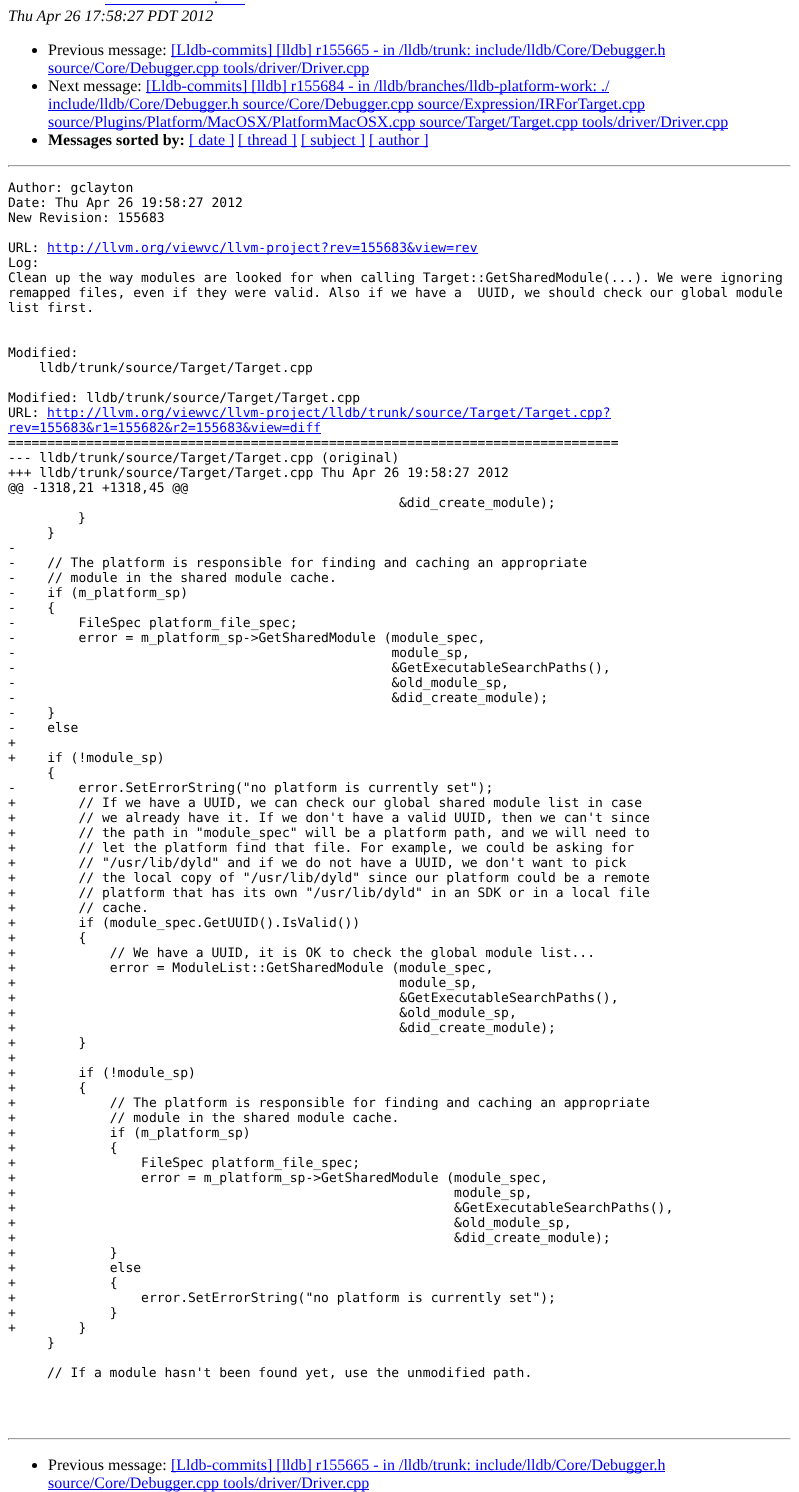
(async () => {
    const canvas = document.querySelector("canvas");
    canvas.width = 799;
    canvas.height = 1492;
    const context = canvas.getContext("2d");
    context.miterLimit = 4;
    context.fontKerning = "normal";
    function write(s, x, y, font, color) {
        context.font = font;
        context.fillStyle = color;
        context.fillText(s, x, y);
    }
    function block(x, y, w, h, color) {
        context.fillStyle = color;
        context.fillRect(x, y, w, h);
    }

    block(0, 0, 799, 1492, "rgb(255, 255, 255)");
    write(".", 214, 3, "16px Liberation Serif", "rgb(0, 0, 238)");
    block(105, 4, 140, 1, "rgb(0, 0, 238)");
    write("Thu Apr 26 17:58:27 PDT 2012", 8, 21, "italic 16px Liberation Serif", "rgb(0, 0, 0)");
    context.beginPath();
    context.arc(34.5, 50.5, 2.5, 0, Math.PI * 2);
    context.fill();
    write("Previous message:", 48, 55, "16px Liberation Serif", "rgb(0, 0, 0)");
    block(171, 56, 494, 1, "rgb(0, 0, 238)");
    write("[Lldb-commits] [lldb] r155665 - in /lldb/trunk: include/lldb/Core/Debugger.h", 171, 55, "16px Liberation Serif", "rgb(0, 0, 238)");
    block(48, 74, 321, 1, "rgb(0, 0, 238)");
    write("source/Core/Debugger.cpp tools/driver/Driver.cpp", 48, 73, "16px Liberation Serif", "rgb(0, 0, 238)");
    context.fillStyle = "rgb(0, 0, 0)";
    context.beginPath();
    context.arc(34.5, 86.5, 2.5, 0, Math.PI * 2);
    context.fill();
    write("Next message:", 48, 91, "16px Liberation Serif", "rgb(0, 0, 0)");
    block(146, 92, 463, 1, "rgb(0, 0, 238)");
    write("[Lldb-commits] [lldb] r155684 - in /lldb/branches/lldb-platform-work: ./", 146, 91, "16px Liberation Serif", "rgb(0, 0, 238)");
    block(48, 110, 597, 1, "rgb(0, 0, 238)");
    write("include/lldb/Core/Debugger.h source/Core/Debugger.cpp source/Expression/IRForTarget.cpp", 48, 109, "16px Liberation Serif", "rgb(0, 0, 238)");
    block(48, 128, 680, 1, "rgb(0, 0, 238)");
    write("source/Plugins/Platform/MacOSX/PlatformMacOSX.cpp source/Target/Target.cpp tools/driver/Driver.cpp", 48, 127, "16px Liberation Serif", "rgb(0, 0, 238)");
    context.fillStyle = "rgb(0, 0, 0)";
    context.beginPath();
    context.arc(34.5, 140.5, 2.5, 0, Math.PI * 2);
    context.fill();
    write("Messages sorted by:", 48, 145, "bold 16px Liberation Serif", "rgb(0, 0, 0)");
    block(189, 146, 45, 1, "rgb(0, 0, 238)");
    write("[ date ]", 189, 145, "16px Liberation Serif", "rgb(0, 0, 238)");
    block(238, 146, 59, 1, "rgb(0, 0, 238)");
    write("[ thread ]", 238, 145, "16px Liberation Serif", "rgb(0, 0, 238)");
    block(301, 146, 64, 1, "rgb(0, 0, 238)");
    write("[ subject ]", 301, 145, "16px Liberation Serif", "rgb(0, 0, 238)");
    block(369, 146, 59, 1, "rgb(0, 0, 238)");
    write("[ author ]", 369, 145, "16px Liberation Serif", "rgb(0, 0, 238)");
    block(8, 165, 783, 1, "rgb(159, 159, 159)");
    block(790, 165, 1, 2, "rgb(238, 238, 238)");
    block(8, 166, 783, 1, "rgb(238, 238, 238)");
    block(8, 165, 1, 2, "rgb(159, 159, 159)");
    write("Author: gclayton", 8, 192, "13px DejaVu Sans Mono", "rgb(0, 0, 0)");
    write("Date: Thu Apr 26 19:58:27 2012", 8, 207, "13px DejaVu Sans Mono", "rgb(0, 0, 0)");
    write("New Revision: 155683", 8, 222, "13px DejaVu Sans Mono", "rgb(0, 0, 0)");
    write("URL:", 8, 252, "13px DejaVu Sans Mono", "rgb(0, 0, 0)");
    block(47, 253, 431, 1, "rgb(0, 0, 238)");
    write("http://llvm.org/viewvc/llvm-project?rev=155683&view=rev", 47, 252, "13px DejaVu Sans Mono", "rgb(0, 0, 238)");
    write("Log:", 8, 267, "13px DejaVu Sans Mono", "rgb(0, 0, 0)");
    write("Clean up the way modules are looked for when calling Target::GetSharedModule(...). We were ignoring", 8, 282, "13px DejaVu Sans Mono", "rgb(0, 0, 0)");
    write("remapped files, even if they were valid. Also if we have a  UUID, we should check our global module", 8, 297, "13px DejaVu Sans Mono", "rgb(0, 0, 0)");
    write("list first.", 8, 312, "13px DejaVu Sans Mono", "rgb(0, 0, 0)");
    write("Modified:", 8, 357, "13px DejaVu Sans Mono", "rgb(0, 0, 0)");
    write("lldb/trunk/source/Target/Target.cpp", 39, 372, "13px DejaVu Sans Mono", "rgb(0, 0, 0)");
    write("Modified: lldb/trunk/source/Target/Target.cpp", 8, 402, "13px DejaVu Sans Mono", "rgb(0, 0, 0)");
    write("URL:", 8, 417, "13px DejaVu Sans Mono", "rgb(0, 0, 0)");
    block(47, 418, 564, 1, "rgb(0, 0, 238)");
    write("http://llvm.org/viewvc/llvm-project/lldb/trunk/source/Target/Target.cpp?", 47, 417, "13px DejaVu Sans Mono", "rgb(0, 0, 238)");
    write("rev=155683&r1=155682&r2=155683&view=diff", 8, 432, "13px DejaVu Sans Mono", "rgb(0, 0, 238)");
    block(8, 433, 313, 1, "rgb(0, 0, 238)");
    write("==============================================================================", 8, 447, "13px DejaVu Sans Mono", "rgb(0, 0, 0)");
    write("--- lldb/trunk/source/Target/Target.cpp (original)", 8, 462, "13px DejaVu Sans Mono", "rgb(0, 0, 0)");
    write("+++ lldb/trunk/source/Target/Target.cpp Thu Apr 26 19:58:27 2012", 8, 477, "13px DejaVu Sans Mono", "rgb(0, 0, 0)");
    write("@@ -1318,21 +1318,45 @@", 8, 492, "13px DejaVu Sans Mono", "rgb(0, 0, 0)");
    write("&did_create_module);", 399, 507, "13px DejaVu Sans Mono", "rgb(0, 0, 0)");
    write("}", 78, 522, "13px DejaVu Sans Mono", "rgb(0, 0, 0)");
    write("}", 47, 537, "13px DejaVu Sans Mono", "rgb(0, 0, 0)");
    write("-", 8, 552, "13px DejaVu Sans Mono", "rgb(0, 0, 0)");
    write("-    // The platform is responsible for finding and caching an appropriate", 8, 567, "13px DejaVu Sans Mono", "rgb(0, 0, 0)");
    write("-    // module in the shared module cache.", 8, 582, "13px DejaVu Sans Mono", "rgb(0, 0, 0)");
    write("-    if (m_platform_sp)", 8, 597, "13px DejaVu Sans Mono", "rgb(0, 0, 0)");
    write("-    {", 8, 612, "13px DejaVu Sans Mono", "rgb(0, 0, 0)");
    write("-        FileSpec platform_file_spec;", 8, 627, "13px DejaVu Sans Mono", "rgb(0, 0, 0)");
    write("-        error = m_platform_sp->GetSharedModule (module_spec,", 8, 642, "13px DejaVu Sans Mono", "rgb(0, 0, 0)");
    write("-                                                module_sp,", 8, 657, "13px DejaVu Sans Mono", "rgb(0, 0, 0)");
    write("-                                                &GetExecutableSearchPaths(),", 8, 672, "13px DejaVu Sans Mono", "rgb(0, 0, 0)");
    write("-                                                &old_module_sp,", 8, 687, "13px DejaVu Sans Mono", "rgb(0, 0, 0)");
    write("-                                                &did_create_module);", 8, 702, "13px DejaVu Sans Mono", "rgb(0, 0, 0)");
    write("-    }", 8, 717, "13px DejaVu Sans Mono", "rgb(0, 0, 0)");
    write("-    else", 8, 732, "13px DejaVu Sans Mono", "rgb(0, 0, 0)");
    write("+", 8, 747, "13px DejaVu Sans Mono", "rgb(0, 0, 0)");
    write("+    if (!module_sp)", 8, 762, "13px DejaVu Sans Mono", "rgb(0, 0, 0)");
    write("{", 47, 777, "13px DejaVu Sans Mono", "rgb(0, 0, 0)");
    write("-        error.SetErrorString(\"no platform is currently set\");", 8, 792, "13px DejaVu Sans Mono", "rgb(0, 0, 0)");
    write("+        // If we have a UUID, we can check our global shared module list in case", 8, 807, "13px DejaVu Sans Mono", "rgb(0, 0, 0)");
    write("+        // we already have it. If we don't have a valid UUID, then we can't since", 8, 822, "13px DejaVu Sans Mono", "rgb(0, 0, 0)");
    write("+        // the path in \"module_spec\" will be a platform path, and we will need to", 8, 837, "13px DejaVu Sans Mono", "rgb(0, 0, 0)");
    write("+        // let the platform find that file. For example, we could be asking for", 8, 852, "13px DejaVu Sans Mono", "rgb(0, 0, 0)");
    write("+        // \"/usr/lib/dyld\" and if we do not have a UUID, we don't want to pick", 8, 867, "13px DejaVu Sans Mono", "rgb(0, 0, 0)");
    write("+        // the local copy of \"/usr/lib/dyld\" since our platform could be a remote", 8, 882, "13px DejaVu Sans Mono", "rgb(0, 0, 0)");
    write("+        // platform that has its own \"/usr/lib/dyld\" in an SDK or in a local file", 8, 897, "13px DejaVu Sans Mono", "rgb(0, 0, 0)");
    write("+        // cache.", 8, 912, "13px DejaVu Sans Mono", "rgb(0, 0, 0)");
    write("+        if (module_spec.GetUUID().IsValid())", 8, 927, "13px DejaVu Sans Mono", "rgb(0, 0, 0)");
    write("+        {", 8, 942, "13px DejaVu Sans Mono", "rgb(0, 0, 0)");
    write("+            // We have a UUID, it is OK to check the global module list...", 8, 957, "13px DejaVu Sans Mono", "rgb(0, 0, 0)");
    write("+            error = ModuleList::GetSharedModule (module_spec,", 8, 972, "13px DejaVu Sans Mono", "rgb(0, 0, 0)");
    write("+                                                 module_sp,", 8, 987, "13px DejaVu Sans Mono", "rgb(0, 0, 0)");
    write("+                                                 &GetExecutableSearchPaths(),", 8, 1002, "13px DejaVu Sans Mono", "rgb(0, 0, 0)");
    write("+                                                 &old_module_sp,", 8, 1017, "13px DejaVu Sans Mono", "rgb(0, 0, 0)");
    write("+                                                 &did_create_module);", 8, 1032, "13px DejaVu Sans Mono", "rgb(0, 0, 0)");
    write("+        }", 8, 1047, "13px DejaVu Sans Mono", "rgb(0, 0, 0)");
    write("+", 8, 1062, "13px DejaVu Sans Mono", "rgb(0, 0, 0)");
    write("+        if (!module_sp)", 8, 1077, "13px DejaVu Sans Mono", "rgb(0, 0, 0)");
    write("+        {", 8, 1092, "13px DejaVu Sans Mono", "rgb(0, 0, 0)");
    write("+            // The platform is responsible for finding and caching an appropriate", 8, 1107, "13px DejaVu Sans Mono", "rgb(0, 0, 0)");
    write("+            // module in the shared module cache.", 8, 1122, "13px DejaVu Sans Mono", "rgb(0, 0, 0)");
    write("+            if (m_platform_sp)", 8, 1137, "13px DejaVu Sans Mono", "rgb(0, 0, 0)");
    write("+            {", 8, 1152, "13px DejaVu Sans Mono", "rgb(0, 0, 0)");
    write("+                FileSpec platform_file_spec;", 8, 1167, "13px DejaVu Sans Mono", "rgb(0, 0, 0)");
    write("+                error = m_platform_sp->GetSharedModule (module_spec,", 8, 1182, "13px DejaVu Sans Mono", "rgb(0, 0, 0)");
    write("+                                                        module_sp,", 8, 1197, "13px DejaVu Sans Mono", "rgb(0, 0, 0)");
    write("+                                                        &GetExecutableSearchPaths(),", 8, 1212, "13px DejaVu Sans Mono", "rgb(0, 0, 0)");
    write("+                                                        &old_module_sp,", 8, 1227, "13px DejaVu Sans Mono", "rgb(0, 0, 0)");
    write("+                                                        &did_create_module);", 8, 1242, "13px DejaVu Sans Mono", "rgb(0, 0, 0)");
    write("+            }", 8, 1257, "13px DejaVu Sans Mono", "rgb(0, 0, 0)");
    write("+            else", 8, 1272, "13px DejaVu Sans Mono", "rgb(0, 0, 0)");
    write("+            {", 8, 1287, "13px DejaVu Sans Mono", "rgb(0, 0, 0)");
    write("+                error.SetErrorString(\"no platform is currently set\");", 8, 1302, "13px DejaVu Sans Mono", "rgb(0, 0, 0)");
    write("+            }", 8, 1317, "13px DejaVu Sans Mono", "rgb(0, 0, 0)");
    write("+        }", 8, 1332, "13px DejaVu Sans Mono", "rgb(0, 0, 0)");
    write("}", 47, 1347, "13px DejaVu Sans Mono", "rgb(0, 0, 0)");
    write("// If a module hasn't been found yet, use the unmodified path.", 47, 1377, "13px DejaVu Sans Mono", "rgb(0, 0, 0)");
    block(8, 1438, 783, 1, "rgb(159, 159, 159)");
    block(790, 1438, 1, 2, "rgb(238, 238, 238)");
    block(8, 1439, 783, 1, "rgb(238, 238, 238)");
    block(8, 1438, 1, 2, "rgb(159, 159, 159)");
    context.fillStyle = "rgb(0, 0, 0)";
    context.beginPath();
    context.arc(34.5, 1465.5, 2.5, 0, Math.PI * 2);
    context.fill();
    write("Previous message:", 48, 1470, "16px Liberation Serif", "rgb(0, 0, 0)");
    block(171, 1471, 494, 1, "rgb(0, 0, 238)");
    write("[Lldb-commits] [lldb] r155665 - in /lldb/trunk: include/lldb/Core/Debugger.h", 171, 1470, "16px Liberation Serif", "rgb(0, 0, 238)");
    block(48, 1489, 321, 1, "rgb(0, 0, 238)");
    write("source/Core/Debugger.cpp tools/driver/Driver.cpp", 48, 1488, "16px Liberation Serif", "rgb(0, 0, 238)");
})();
